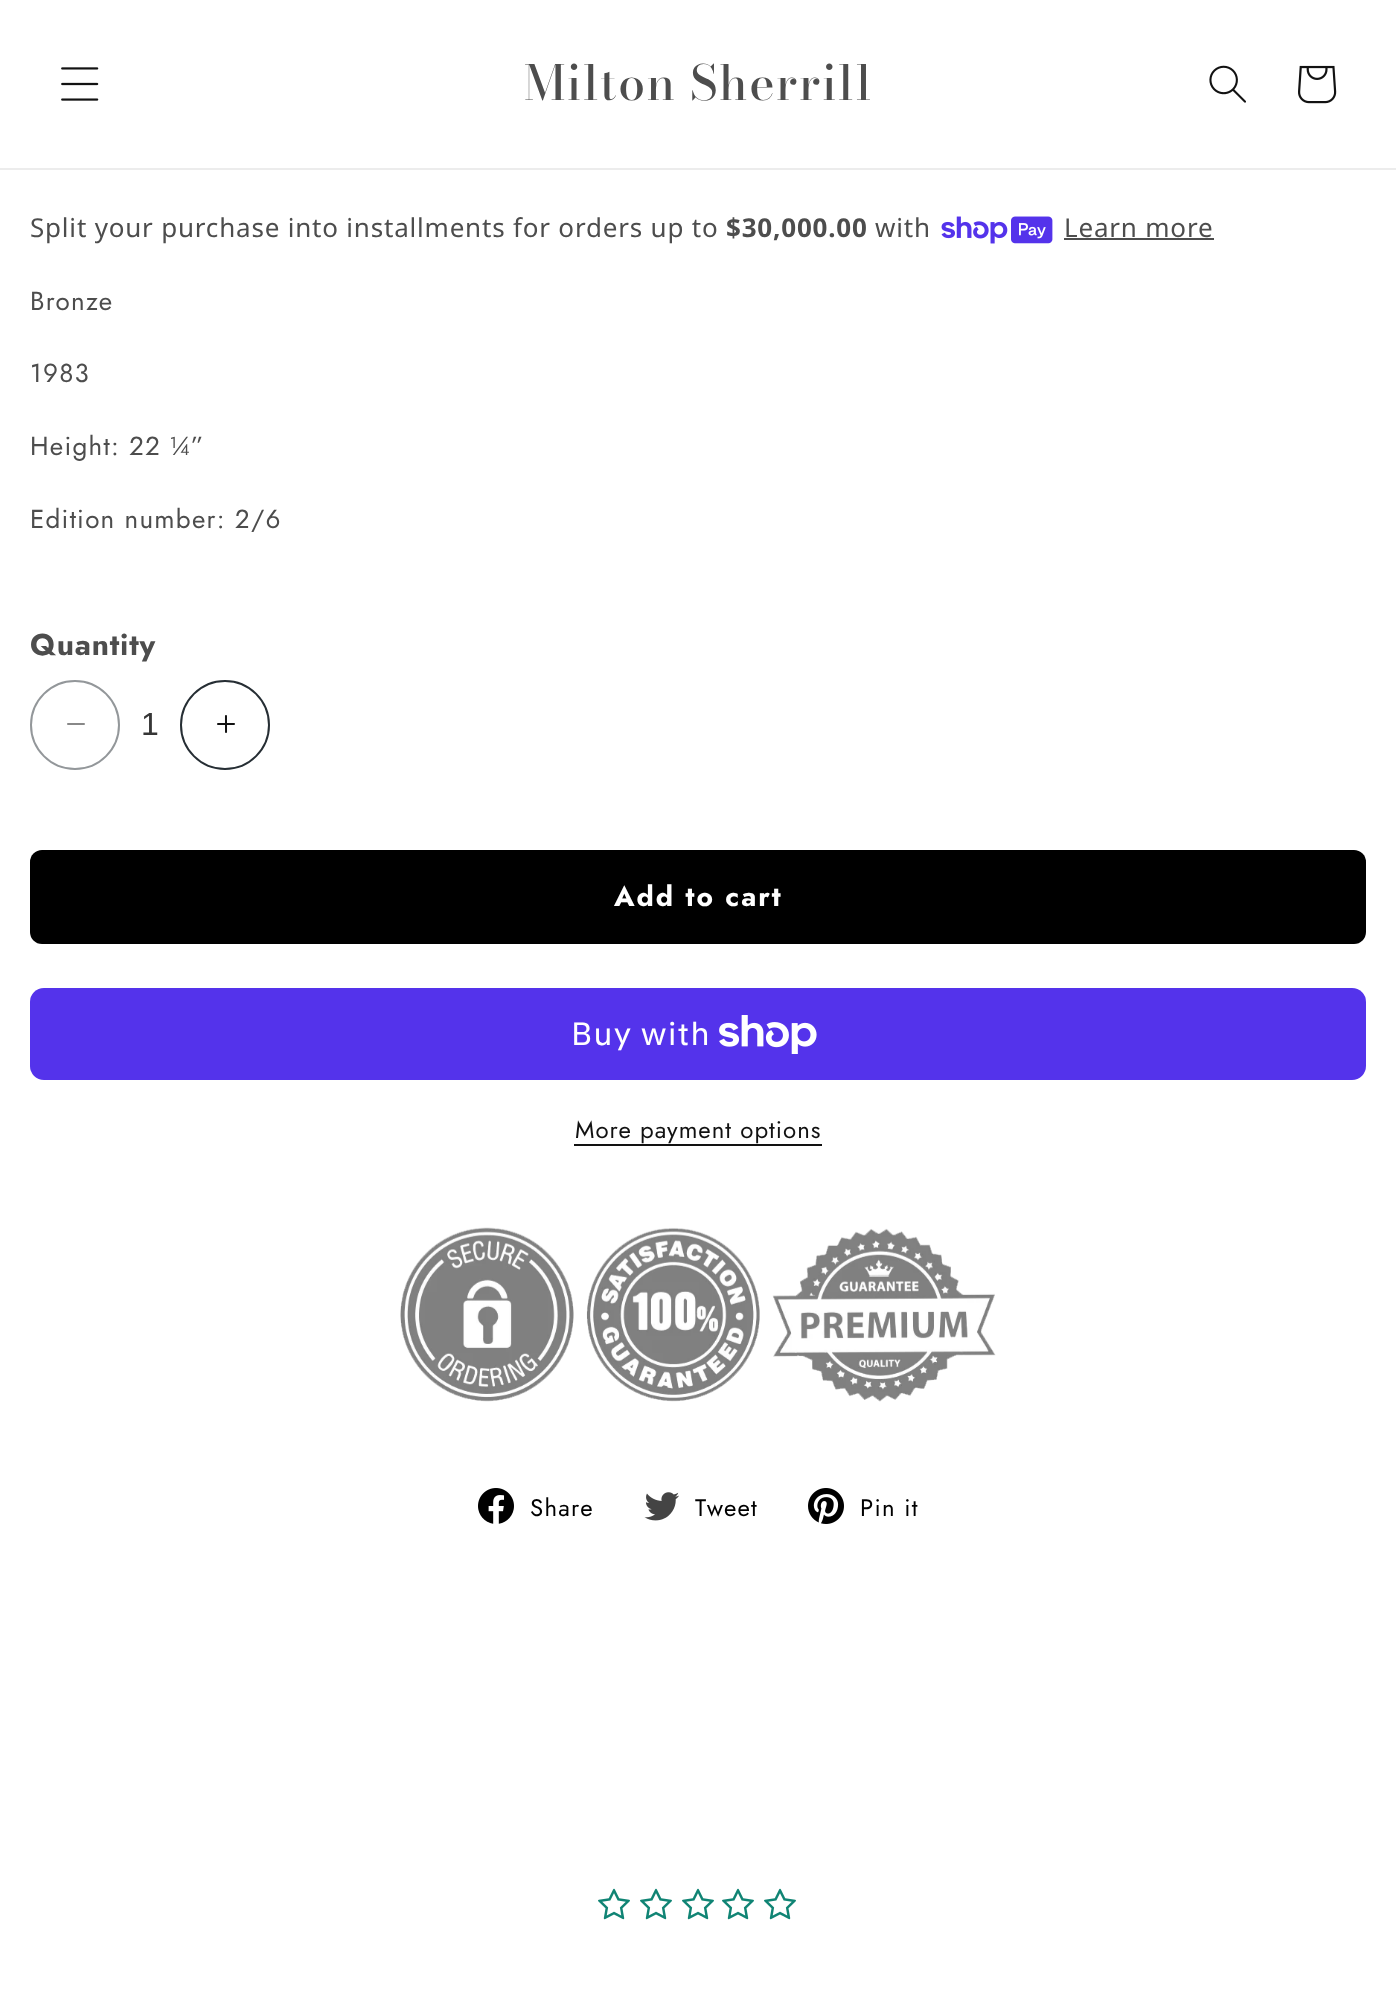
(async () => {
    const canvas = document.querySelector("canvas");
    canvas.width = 1396;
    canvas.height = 2009;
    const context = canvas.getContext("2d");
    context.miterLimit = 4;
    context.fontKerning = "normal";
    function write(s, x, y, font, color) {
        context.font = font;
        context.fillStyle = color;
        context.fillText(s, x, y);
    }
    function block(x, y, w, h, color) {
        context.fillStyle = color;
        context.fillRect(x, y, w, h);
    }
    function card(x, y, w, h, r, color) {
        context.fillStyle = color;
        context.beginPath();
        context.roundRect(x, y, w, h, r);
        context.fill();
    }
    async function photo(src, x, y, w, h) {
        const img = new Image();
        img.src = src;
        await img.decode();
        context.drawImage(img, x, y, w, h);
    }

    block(0, 0, 1396, 2009, "rgb(255, 255, 255)");
    block(0, 168, 1396, 2, "rgb(236, 236, 236)");
    await photo("media/1.png", 61, 67, 38, 34);
    context.letterSpacing = "1.5px";
    write("Milton Sherrill", 524, 100, "500 48px Bodoni Moda", "rgb(77, 77, 77)");
    await photo("media/2.png", 1209, 65, 37, 38);
    await photo("media/3.png", 1298, 65, 39, 39);
    context.letterSpacing = "0.8px";
    write("Split your purchase into installments for orders up to", 30, 237, "26px Noto Sans", "rgb(77, 77, 77)");
    write("$30,000.00", 726, 237, "bold 26px Noto Sans", "rgb(77, 77, 77)");
    write("with", 875, 237, "26px Noto Sans", "rgb(77, 77, 77)");
    await photo("media/4.png", 941, 216, 112, 28);
    write("Learn more", 1064, 237, "26px Noto Sans", "rgb(77, 77, 77)");
    block(1064, 238, 150, 2, "rgb(77, 77, 77)");
    context.letterSpacing = "1.25px";
    write("Bronze", 30, 310, "26px Jost", "rgb(77, 77, 77)");
    write("1983", 30, 382, "26px Jost", "rgb(77, 77, 77)");
    write("Height: 22 ¼”", 30, 455, "26px Jost", "rgb(77, 77, 77)");
    write("Edition number: 2/6", 30, 528, "26px Jost", "rgb(77, 77, 77)");
    context.letterSpacing = "0.8px";
    write("Quantity", 30, 655, "bold 30px Jost", "rgb(77, 77, 77)");
    context.beginPath();
    context.arc(75, 725, 44, 0, Math.PI * 2);
    context.strokeStyle = "rgb(147, 151, 154)";
    context.lineWidth = 2;
    context.stroke();
    await photo("media/5.png", 67, 723, 18, 2);
    context.letterSpacing = "0px";
    write("1", 141, 735, "32px Liberation Sans", "rgb(54, 54, 54)");
    context.beginPath();
    context.arc(225, 725, 44, 0, Math.PI * 2);
    context.strokeStyle = "rgb(38, 46, 52)";
    context.stroke();
    await photo("media/6.png", 217, 715, 18, 18);
    card(30, 850, 1336, 94, 12, "rgb(0, 0, 0)");
    context.letterSpacing = "2px";
    write("Add to cart", 614, 906, "bold 28px Jost", "rgb(255, 255, 255)");
    card(30, 988, 1336, 92, 14, "rgb(84, 51, 235)");
    context.letterSpacing = "1.25px";
    write("Buy with", 571, 1045, "32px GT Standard", "rgb(255, 255, 255)");
    await photo("media/7.png", 719, 1015, 98, 39);
    context.letterSpacing = "1px";
    write("More payment options", 575, 1138, "24px Jost", "rgb(18, 18, 18)");
    block(574, 1144, 248, 2, "rgb(18, 18, 18)");
    await photo("media/8.png", 400, 1227, 596, 175);
    await photo("media/9.png", 478, 1488, 36, 36);
    context.letterSpacing = "1.25px";
    write("Share", 530, 1516, "24px Jost", "rgb(0, 0, 0)");
    await photo("media/10.png", 644, 1492, 35, 29);
    write("Tweet", 695, 1516, "24px Jost", "rgb(0, 0, 0)");
    await photo("media/11.png", 808, 1488, 36, 36);
    write("Pin it", 860, 1516, "24px Jost", "rgb(0, 0, 0)");
    await photo("media/12.png", 598, 1888, 32, 32);
    await photo("media/12.png", 640, 1888, 32, 32);
    await photo("media/12.png", 682, 1888, 32, 32);
    await photo("media/12.png", 722, 1888, 32, 32);
    await photo("media/12.png", 764, 1888, 32, 32);
})();
